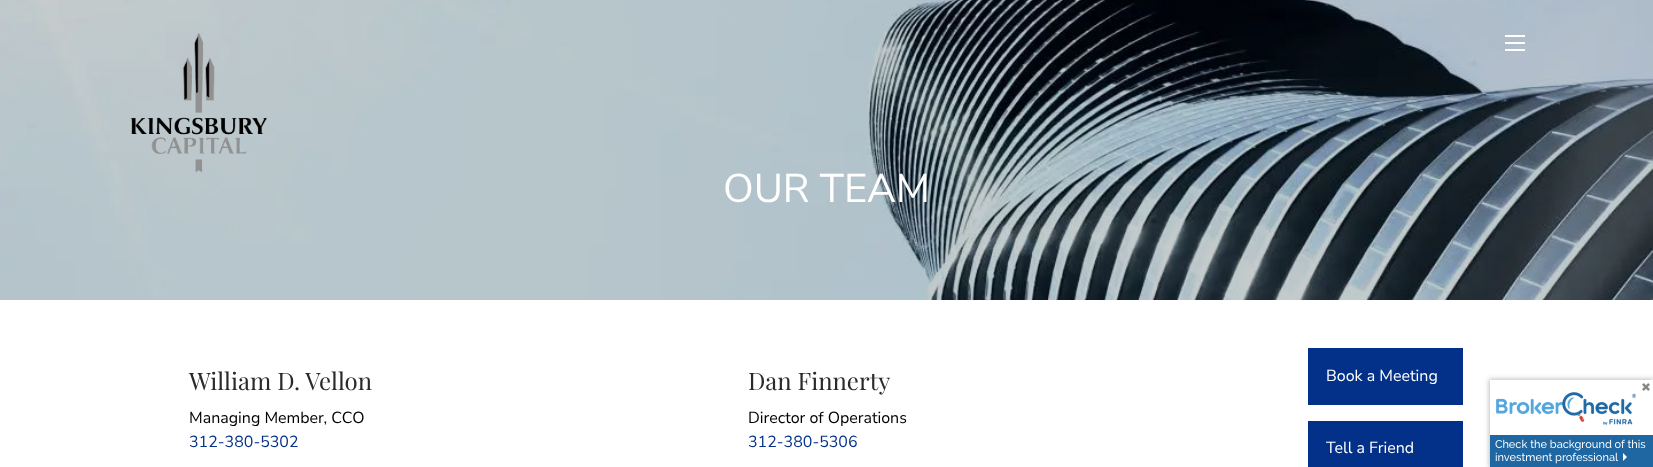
(async () => {
    const canvas = document.querySelector("canvas");
    canvas.width = 1653;
    canvas.height = 467;
    const context = canvas.getContext("2d");
    context.miterLimit = 4;
    context.fontKerning = "normal";
    function write(s, x, y, font, color) {
        context.font = font;
        context.fillStyle = color;
        context.fillText(s, x, y);
    }
    function block(x, y, w, h, color) {
        context.fillStyle = color;
        context.fillRect(x, y, w, h);
    }
    async function photo(src, x, y, w, h) {
        const img = new Image();
        img.src = src;
        await img.decode();
        context.drawImage(img, x, y, w, h);
    }

    block(0, 0, 1653, 467, "rgb(255, 255, 255)");
    await photo("media/2.png", 0, 0, 1653, 300);
    await photo("media/1.png", 130, 33, 137, 140);
    block(1505, 49, 20, 2, "rgb(255, 255, 255)");
    block(1505, 42, 20, 2, "rgb(255, 255, 255)");
    block(1505, 35, 20, 2, "rgb(255, 255, 255)");
    write("OUR TEAM", 723, 202, "40px Nunito Sans", "rgb(255, 255, 255)");
    write("William D. Vellon", 189, 390, "24px Playfair Display", "rgb(42, 42, 42)");
    write("Managing Member, CCO", 189, 423, "16px Nunito Sans", "rgb(0, 0, 0)");
    write("312-380-5302", 189, 447, "16px Nunito Sans", "rgb(3, 49, 137)");
    write("Dan Finnerty", 748, 390, "24px Playfair Display", "rgb(42, 42, 42)");
    write("Director of Operations", 748, 423, "16px Nunito Sans", "rgb(0, 0, 0)");
    write("312-380-5306", 748, 447, "16px Nunito Sans", "rgb(3, 49, 137)");
    block(1308, 348, 155, 57, "rgb(3, 49, 137)");
    write("Book a Meeting", 1326, 381, "16px Nunito Sans", "rgb(255, 255, 255)");
    block(1308, 421, 155, 46, "rgb(3, 49, 137)");
    write("Tell a Friend", 1326, 453, "16px Nunito Sans", "rgb(255, 255, 255)");
    context.save();
    context.beginPath();
    context.moveTo(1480, 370);
    context.lineTo(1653, 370);
    context.lineTo(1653, 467);
    context.lineTo(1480, 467);
    context.closePath();
    context.moveTo(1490, 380);
    context.lineTo(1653, 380);
    context.lineTo(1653, 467);
    context.lineTo(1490, 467);
    context.closePath();
    context.clip("evenodd");
    context.fillStyle = "rgba(0, 0, 0, 0.25)";
    context.filter = "blur(2.5px)";
    context.beginPath();
    context.rect(1489, 379, 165, 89);
    context.fill();
    context.filter = "none";
    context.restore();
    await photo("media/3.png", 1490, 383, 163, 84);
})();
